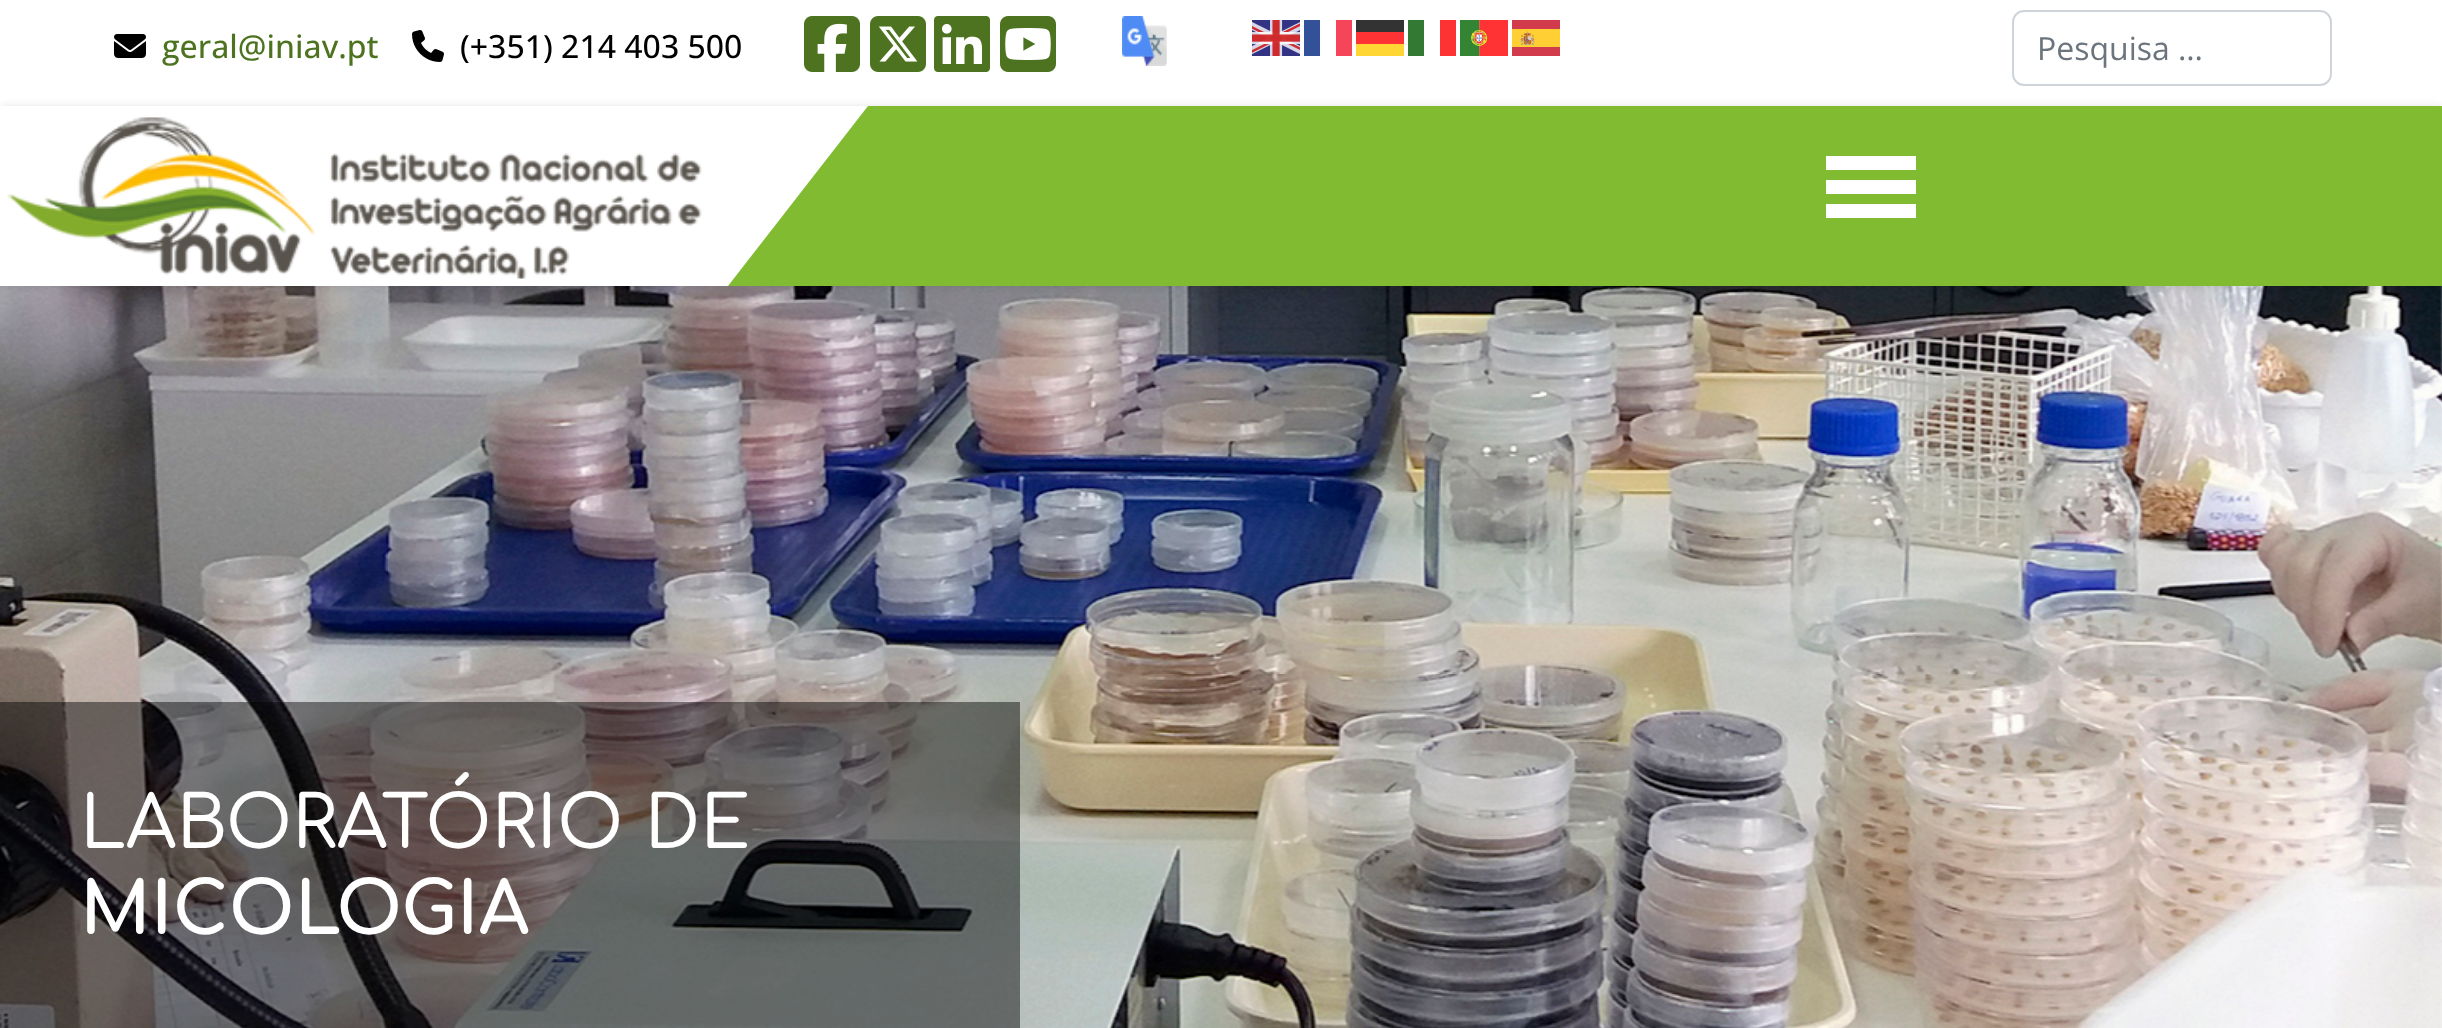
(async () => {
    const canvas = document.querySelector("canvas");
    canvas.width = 2442;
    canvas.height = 1028;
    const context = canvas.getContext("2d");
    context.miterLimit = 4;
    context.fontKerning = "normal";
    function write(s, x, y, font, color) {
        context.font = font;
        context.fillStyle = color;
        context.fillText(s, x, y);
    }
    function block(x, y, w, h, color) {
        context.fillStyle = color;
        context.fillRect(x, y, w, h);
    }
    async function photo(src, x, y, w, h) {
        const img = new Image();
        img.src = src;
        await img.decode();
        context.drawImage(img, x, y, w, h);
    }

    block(0, 0, 2442, 1028, "rgb(255, 255, 255)");
    await photo("media/1.png", 114, 34, 32, 24);
    write("geral@iniav.pt", 162, 58, "500 32px Open Sans", "rgb(77, 115, 33)");
    await photo("media/2.png", 412, 30, 32, 32);
    write("(+351) 214 403 500", 460, 58, "500 32px Open Sans", "rgb(0, 0, 0)");
    await photo("media/3.png", 804, 16, 56, 56);
    await photo("media/4.png", 870, 16, 56, 56);
    await photo("media/5.png", 934, 16, 56, 56);
    await photo("media/6.png", 1000, 16, 56, 56);
    await photo("media/7.png", 1122, 16, 45, 50);
    await photo("media/8.png", 1252, 20, 48, 36);
    block(1304, 20, 16, 36, "rgb(51, 81, 153)");
    block(1336, 20, 16, 36, "rgb(245, 70, 89)");
    block(1356, 20, 48, 12, "rgb(51, 51, 51)");
    block(1408, 20, 16, 36, "rgb(51, 121, 51)");
    block(1440, 20, 16, 36, "rgb(253, 51, 51)");
    await photo("media/9.png", 1460, 20, 48, 36);
    await photo("media/10.png", 1512, 20, 48, 36);
    block(1356, 32, 48, 12, "rgb(255, 51, 51)");
    block(1356, 44, 48, 12, "rgb(255, 214, 51)");
    context.beginPath();
    context.roundRect(2013, 11, 318, 74, 11);
    context.strokeStyle = "rgb(206, 212, 218)";
    context.lineWidth = 2;
    context.stroke();
    write("Pesquisa …", 2037, 60, "32px Open Sans", "rgb(108, 117, 125)");
    await photo("media/12.png", 0, 286, 2442, 742);
    context.fillStyle = "rgba(0, 0, 0, 0.1)";
    context.filter = "blur(4px)";
    context.beginPath();
    context.rect(0, 106, 2442, 180);
    context.fill();
    context.filter = "none";
    block(728, 106, 1714, 180, "rgb(129, 187, 49)");
    block(0, 106, 728, 180, "rgb(255, 255, 255)");
    context.beginPath();
    context.moveTo(728, 106);
    context.lineTo(868, 106);
    context.lineTo(728, 286);
    context.closePath();
    context.fill();
    await photo("media/11.png", 7, 117, 695, 162);
    block(1826, 156, 90, 14, "rgb(255, 255, 255)");
    block(1826, 180, 90, 14, "rgb(255, 255, 255)");
    block(1826, 204, 90, 14, "rgb(255, 255, 255)");
    block(0, 702, 1020, 326, "rgba(0, 0, 0, 0.45)");
    write("LABORATÓRIO DE", 80, 848, "500 72px Comfortaa", "rgb(255, 255, 255)");
    write("MICOLOGIA", 80, 934, "bold 72px Comfortaa", "rgb(255, 255, 255)");
})();
